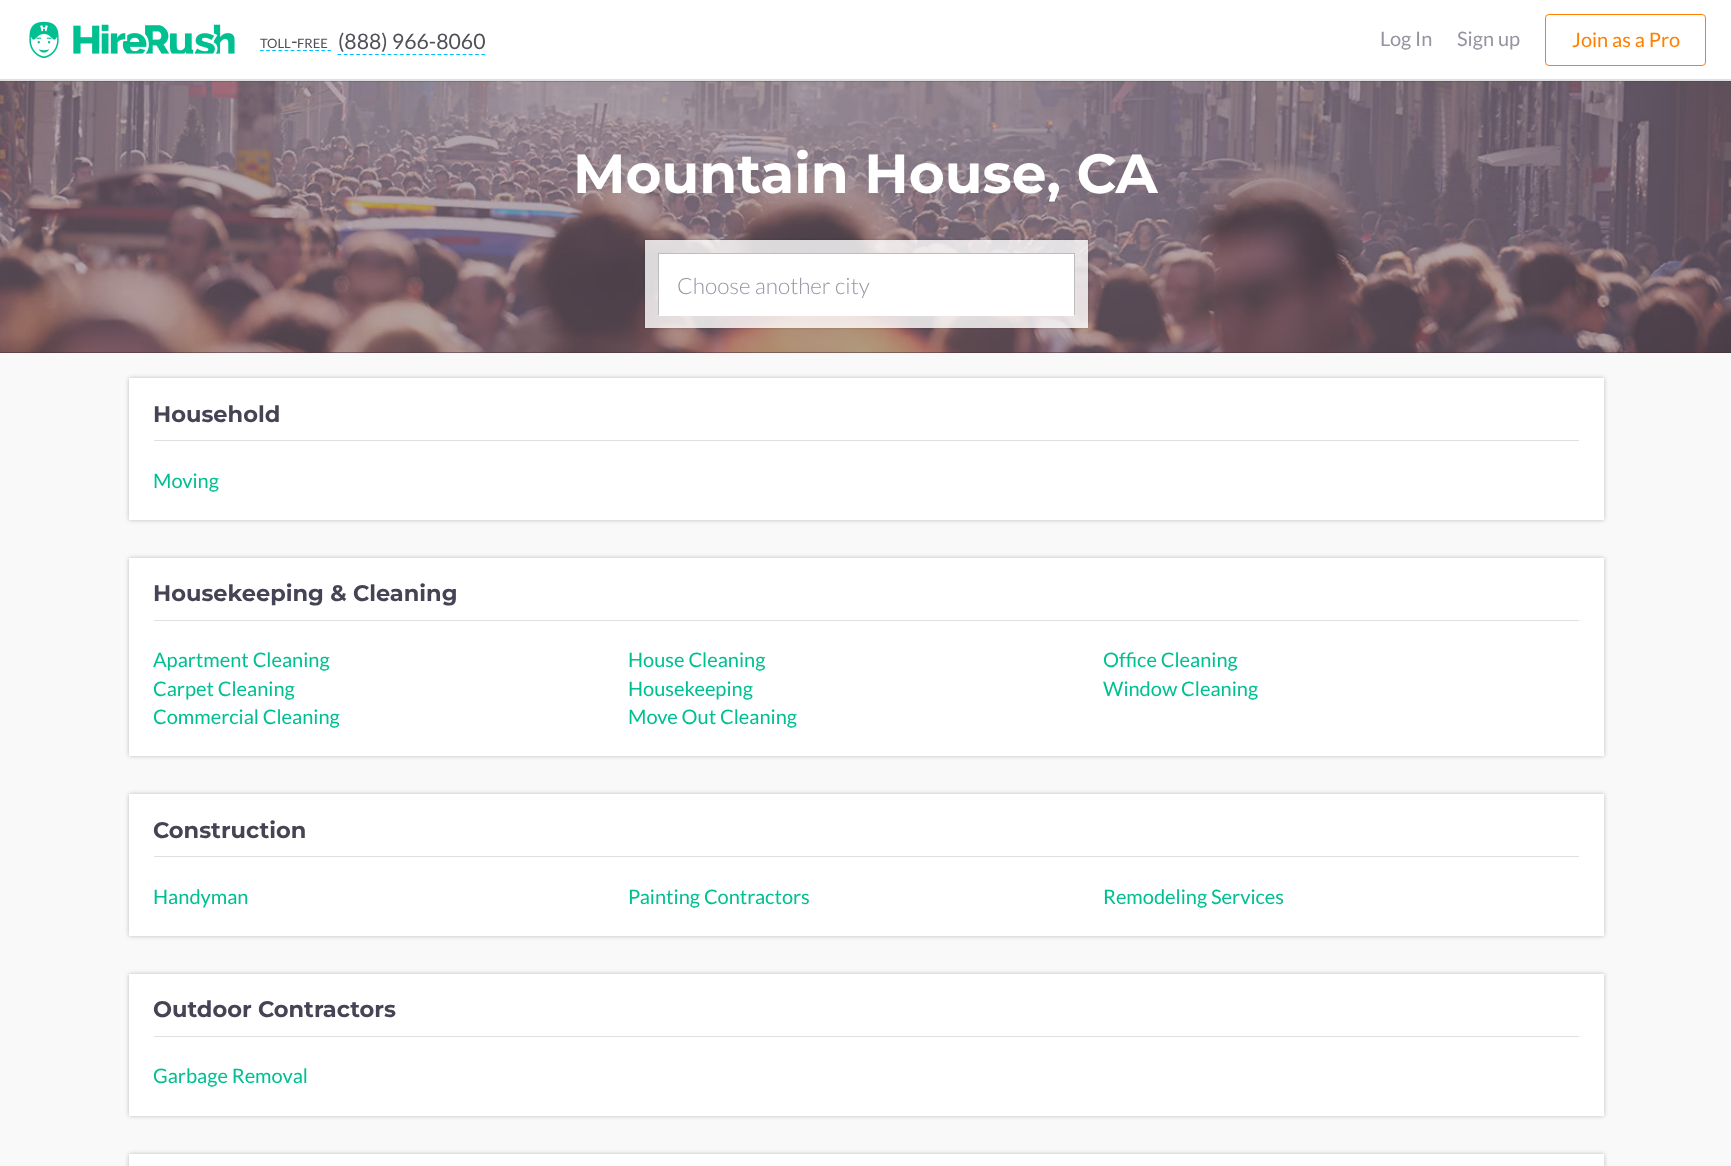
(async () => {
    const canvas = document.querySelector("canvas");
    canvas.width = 1731;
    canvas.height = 1166;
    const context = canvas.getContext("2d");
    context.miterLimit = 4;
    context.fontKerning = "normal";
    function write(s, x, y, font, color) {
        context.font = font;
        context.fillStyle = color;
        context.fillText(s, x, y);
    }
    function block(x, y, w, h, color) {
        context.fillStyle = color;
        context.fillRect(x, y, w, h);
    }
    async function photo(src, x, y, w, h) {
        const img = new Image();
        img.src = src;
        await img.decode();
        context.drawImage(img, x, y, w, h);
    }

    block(0, 0, 1731, 1166, "rgb(249, 249, 249)");
    block(0, 0, 1731, 79, "rgb(255, 255, 255)");
    block(0, 79, 1731, 2, "rgb(224, 224, 224)");
    await photo("media/1.png", 29, 21, 30, 38);
    await photo("media/2.png", 73, 24, 162, 30);
    context.beginPath();
    context.moveTo(260, 50.5);
    context.lineTo(331, 50.5);
    context.strokeStyle = "rgb(0, 191, 255)";
    context.lineWidth = 1.2;
    context.setLineDash([3.75, 2.39]);
    context.stroke();
    context.beginPath();
    context.moveTo(337.5, 54.5);
    context.lineTo(485, 54.5);
    context.setLineDash([3.75, 2.5]);
    context.stroke();
    write("TOLL", 260, 48, "13px Lato", "rgb(80, 80, 88)");
    write("-", 291, 48, "19px Lato", "rgb(80, 80, 88)");
    write("FREE", 297, 48, "13px Lato", "rgb(80, 80, 88)");
    write("(888) 966-8060", 338, 49, "21.25px Lato", "rgb(80, 80, 88)");
    write("Log In", 1380, 46, "20px Lato", "rgb(149, 149, 162)");
    write("Sign up", 1457, 46, "20px Lato", "rgb(149, 149, 162)");
    context.beginPath();
    context.roundRect(1545.5, 14.5, 160, 51, 3.5);
    context.strokeStyle = "rgb(255, 128, 1)";
    context.lineWidth = 1;
    context.setLineDash([]);
    context.stroke();
    write("Join as a Pro", 1572, 47, "20px Lato", "rgb(255, 128, 1)");
    block(0, 81, 1731, 272, "rgb(71, 49, 60)");
    await photo("media/3.png", 0, 81, 1731, 272);
    write("Mountain House, CA", 573, 193, "bold 55px Montserrat", "rgb(255, 255, 255)");
    context.save();
    context.beginPath();
    context.moveTo(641, 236);
    context.lineTo(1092, 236);
    context.lineTo(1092, 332);
    context.lineTo(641, 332);
    context.closePath();
    context.moveTo(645, 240);
    context.lineTo(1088, 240);
    context.lineTo(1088, 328);
    context.lineTo(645, 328);
    context.closePath();
    context.clip("evenodd");
    context.fillStyle = "rgba(0, 0, 0, 0.18)";
    context.filter = "blur(1px)";
    context.beginPath();
    context.rect(645, 240, 443, 88);
    context.fill();
    context.filter = "none";
    context.restore();
    block(645, 240, 443, 88, "rgba(255, 255, 255, 0.8)");
    context.strokeStyle = "rgb(189, 189, 189)";
    context.strokeRect(658.5, 253.5, 416, 61);
    block(659, 254, 415, 62, "rgb(255, 255, 255)");
    write("Choose another city", 677, 294, "300 22.5px Lato", "rgb(149, 149, 162)");
    context.fillStyle = "rgb(189, 189, 189)";
    context.filter = "blur(2px)";
    context.beginPath();
    context.rect(129, 378, 1475, 142);
    context.fill();
    context.filter = "none";
    block(129, 378, 1475, 142, "rgb(255, 255, 255)");
    block(154, 440, 1425, 1, "rgb(224, 224, 224)");
    write("Household", 153, 422, "bold 22.5px Montserrat", "rgb(68, 68, 84)");
    write("Moving", 153, 488, "20px Lato", "rgb(0, 192, 146)");
    context.fillStyle = "rgb(189, 189, 189)";
    context.filter = "blur(2px)";
    context.beginPath();
    context.rect(129, 558, 1475, 198);
    context.fill();
    context.filter = "none";
    block(129, 558, 1475, 198, "rgb(255, 255, 255)");
    block(154, 620, 1425, 1, "rgb(224, 224, 224)");
    write("Housekeeping & Cleaning", 153, 601, "bold 22.5px Montserrat", "rgb(68, 68, 84)");
    write("Apartment Cleaning", 153, 667, "20px Lato", "rgb(0, 192, 146)");
    write("Carpet Cleaning", 153, 696, "20px Lato", "rgb(0, 192, 146)");
    write("Commercial Cleaning", 153, 724, "20px Lato", "rgb(0, 192, 146)");
    write("House Cleaning", 628, 667, "20px Lato", "rgb(0, 192, 146)");
    write("Housekeeping", 628, 696, "20px Lato", "rgb(0, 192, 146)");
    write("Move Out Cleaning", 628, 724, "20px Lato", "rgb(0, 192, 146)");
    write("Office Cleaning", 1103, 667, "20px Lato", "rgb(0, 192, 146)");
    write("Window Cleaning", 1103, 696, "20px Lato", "rgb(0, 192, 146)");
    context.fillStyle = "rgb(189, 189, 189)";
    context.filter = "blur(2px)";
    context.beginPath();
    context.rect(129, 794, 1475, 142);
    context.fill();
    context.filter = "none";
    block(129, 794, 1475, 142, "rgb(255, 255, 255)");
    block(154, 856, 1425, 1, "rgb(224, 224, 224)");
    write("Construction", 153, 838, "bold 22.5px Montserrat", "rgb(68, 68, 84)");
    write("Handyman", 153, 904, "20px Lato", "rgb(0, 192, 146)");
    write("Painting Contractors", 628, 904, "20px Lato", "rgb(0, 192, 146)");
    write("Remodeling Services", 1103, 904, "20px Lato", "rgb(0, 192, 146)");
    context.fillStyle = "rgb(189, 189, 189)";
    context.filter = "blur(2px)";
    context.beginPath();
    context.rect(129, 974, 1475, 142);
    context.fill();
    context.filter = "none";
    block(129, 974, 1475, 142, "rgb(255, 255, 255)");
    block(154, 1036, 1425, 1, "rgb(224, 224, 224)");
    write("Outdoor Contractors", 153, 1017, "bold 22.5px Montserrat", "rgb(68, 68, 84)");
    write("Garbage Removal", 153, 1083, "20px Lato", "rgb(0, 192, 146)");
    context.fillStyle = "rgb(189, 189, 189)";
    context.filter = "blur(2px)";
    context.beginPath();
    context.rect(129, 1154, 1475, 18);
    context.fill();
    context.filter = "none";
    block(129, 1154, 1475, 12, "rgb(255, 255, 255)");
})();
